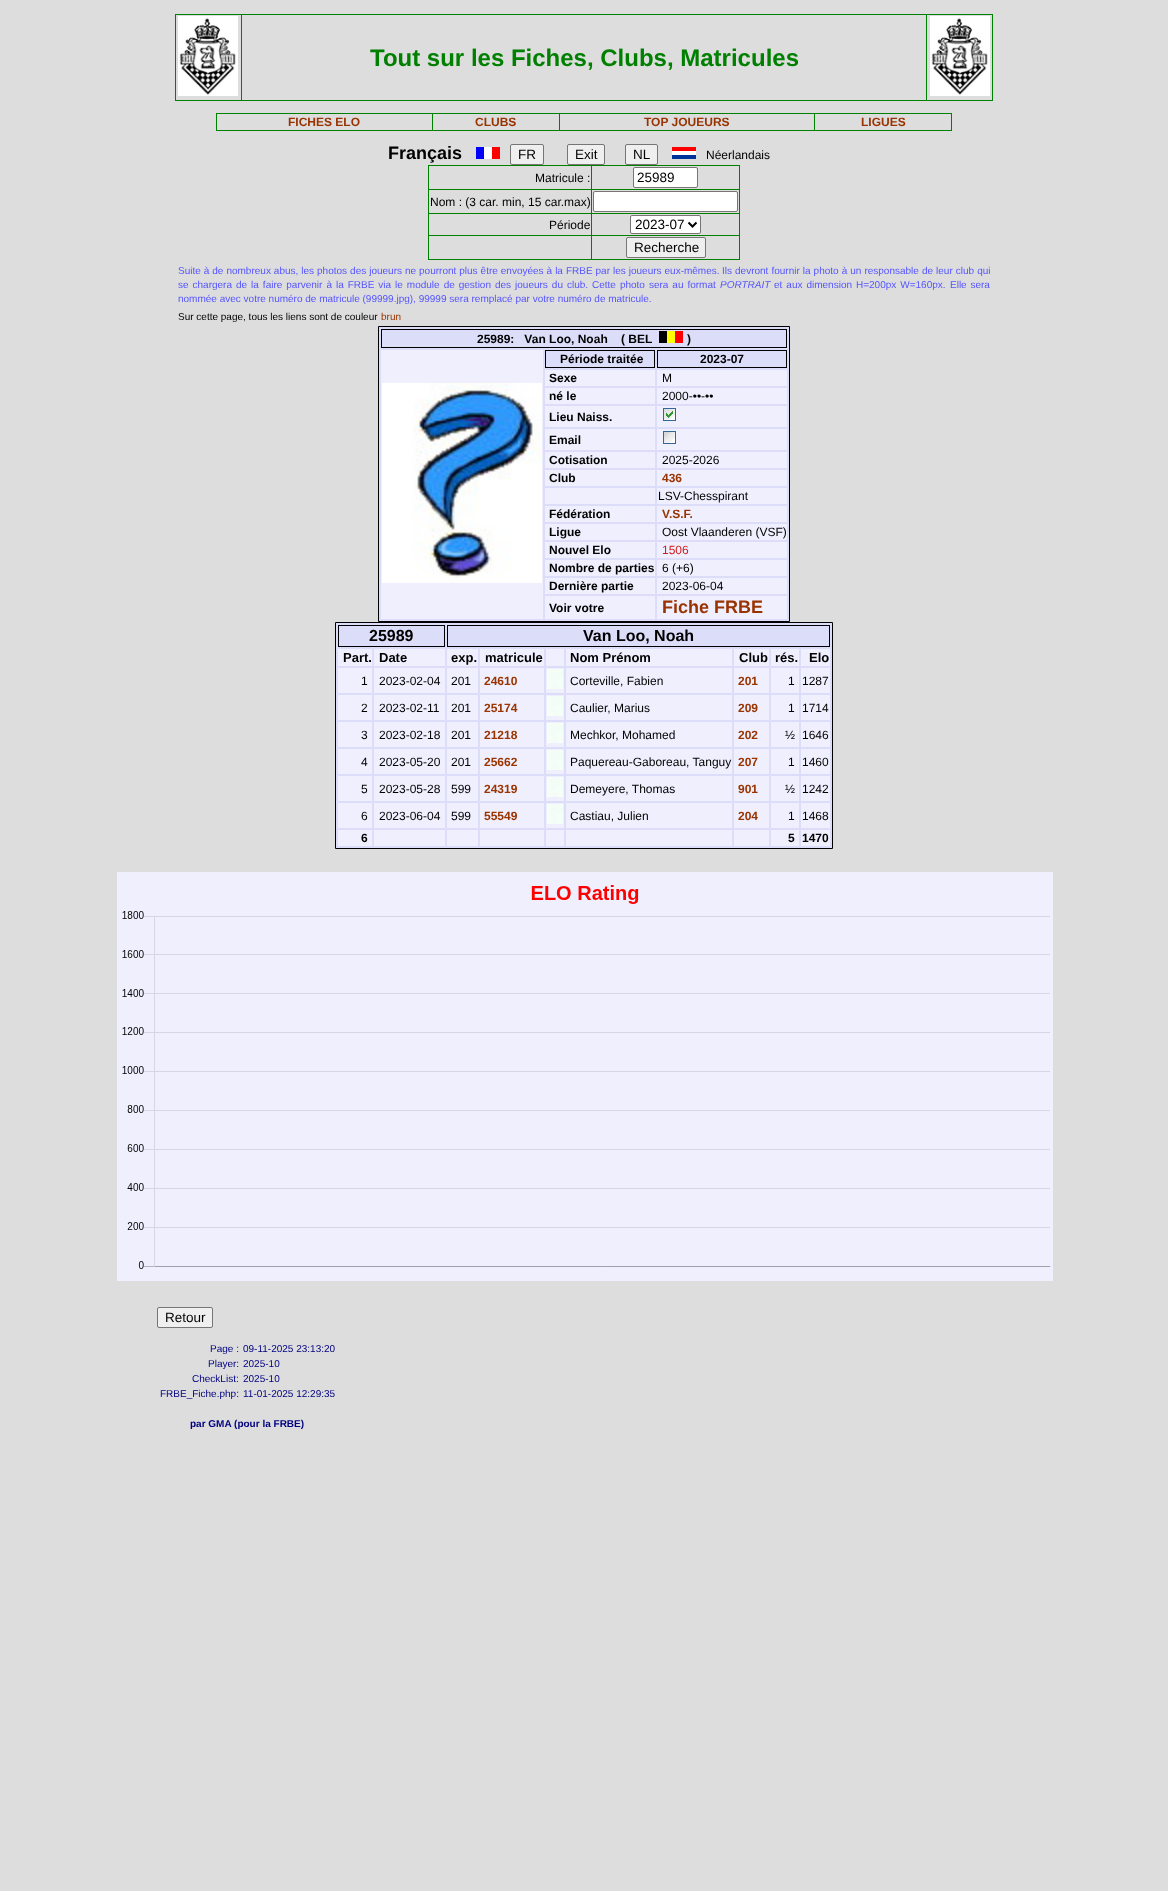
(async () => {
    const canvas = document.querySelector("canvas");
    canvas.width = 1168;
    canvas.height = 1891;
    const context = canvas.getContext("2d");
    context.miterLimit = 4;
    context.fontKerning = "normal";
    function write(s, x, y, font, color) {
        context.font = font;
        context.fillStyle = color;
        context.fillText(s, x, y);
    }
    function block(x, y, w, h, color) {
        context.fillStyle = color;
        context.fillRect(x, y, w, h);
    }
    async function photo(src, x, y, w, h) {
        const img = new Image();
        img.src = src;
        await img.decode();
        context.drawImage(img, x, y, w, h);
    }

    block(0, 0, 1168, 1891, "rgb(221, 221, 221)");
    block(175, 14, 818, 1, "rgb(0, 128, 0)");
    block(992, 14, 1, 87, "rgb(0, 128, 0)");
    block(175, 100, 818, 1, "rgb(0, 128, 0)");
    block(175, 14, 1, 87, "rgb(0, 128, 0)");
    await photo("media/1.png", 178, 16, 60, 80);
    block(241, 14, 1, 87, "rgb(0, 128, 0)");
    write("Tout sur les Fiches, Clubs, Matricules", 370, 66, "bold 24px Liberation Sans", "rgb(0, 128, 0)");
    block(926, 14, 1, 87, "rgb(0, 128, 0)");
    await photo("media/1.png", 930, 16, 60, 80);
    block(216, 113, 736, 1, "rgb(0, 128, 0)");
    block(951, 113, 1, 18, "rgb(0, 128, 0)");
    block(216, 130, 736, 1, "rgb(0, 128, 0)");
    block(216, 113, 1, 18, "rgb(0, 128, 0)");
    write("FICHES ELO", 288, 126, "bold 12px Liberation Sans", "rgb(153, 51, 0)");
    block(432, 113, 1, 18, "rgb(0, 128, 0)");
    write("CLUBS", 475, 126, "bold 12px Liberation Sans", "rgb(153, 51, 0)");
    block(559, 113, 1, 18, "rgb(0, 128, 0)");
    write("TOP JOUEURS", 644, 126, "bold 12px Liberation Sans", "rgb(153, 51, 0)");
    block(814, 113, 1, 18, "rgb(0, 128, 0)");
    write("LIGUES", 861, 126, "bold 12px Liberation Sans", "rgb(153, 51, 0)");
    write("Français", 388, 159, "bold 18px Liberation Sans", "rgb(0, 0, 0)");
    await photo("media/2.png", 476, 147, 24, 12);
    context.fillStyle = "rgb(239, 239, 239)";
    context.beginPath();
    context.roundRect(510.5, 144.5, 33, 20, 1.5);
    context.fill();
    context.strokeStyle = "rgb(118, 118, 118)";
    context.stroke();
    write("FR", 518, 159, "13.5px Liberation Sans", "rgb(0, 0, 0)");
    context.fillStyle = "rgb(239, 239, 239)";
    context.beginPath();
    context.roundRect(567.5, 144.5, 37, 20, 1.5);
    context.fill();
    context.stroke();
    write("Exit", 575, 159, "13.5px Liberation Sans", "rgb(0, 0, 0)");
    context.fillStyle = "rgb(239, 239, 239)";
    context.beginPath();
    context.roundRect(625.5, 144.5, 32, 20, 1.5);
    context.fill();
    context.stroke();
    write("NL", 633, 159, "13.5px Liberation Sans", "rgb(0, 0, 0)");
    await photo("media/3.png", 672, 147, 24, 12);
    write("Néerlandais", 706, 159, "12px Liberation Sans", "rgb(0, 0, 0)");
    block(428, 165, 312, 1, "rgb(0, 128, 0)");
    block(428, 189, 312, 1, "rgb(0, 128, 0)");
    block(428, 213, 312, 1, "rgb(0, 128, 0)");
    block(428, 235, 312, 1, "rgb(0, 128, 0)");
    block(739, 235, 1, 25, "rgb(0, 128, 0)");
    block(739, 213, 1, 23, "rgb(0, 128, 0)");
    block(739, 189, 1, 25, "rgb(0, 128, 0)");
    block(739, 165, 1, 25, "rgb(0, 128, 0)");
    block(428, 259, 312, 1, "rgb(0, 128, 0)");
    block(428, 235, 1, 25, "rgb(0, 128, 0)");
    block(428, 213, 1, 23, "rgb(0, 128, 0)");
    block(428, 189, 1, 25, "rgb(0, 128, 0)");
    block(428, 165, 1, 25, "rgb(0, 128, 0)");
    write("Matricule :", 535, 182, "12px Liberation Sans", "rgb(0, 0, 0)");
    context.fillStyle = "rgb(255, 255, 255)";
    context.beginPath();
    context.roundRect(633.5, 167.5, 64, 20, 1.5);
    context.fill();
    context.stroke();
    write("25989", 637, 182, "13.5px Liberation Sans", "rgb(0, 0, 0)");
    write("Nom : (3 car. min, 15 car.max)", 430, 206, "12px Liberation Sans", "rgb(0, 0, 0)");
    context.fillStyle = "rgb(255, 255, 255)";
    context.beginPath();
    context.roundRect(593.5, 191.5, 144, 20, 1.5);
    context.fill();
    context.stroke();
    write("Période", 549, 229, "12px Liberation Sans", "rgb(0, 0, 0)");
    context.fillStyle = "rgb(255, 255, 255)";
    context.beginPath();
    context.roundRect(630.5, 215.5, 70, 18, 1.5);
    context.fill();
    context.stroke();
    context.beginPath();
    context.moveTo(688.5, 222.5);
    context.lineTo(692.5, 226.5);
    context.lineTo(696.5, 222.5);
    context.strokeStyle = "rgb(0, 0, 0)";
    context.lineWidth = 2;
    context.stroke();
    write("2023-07", 635, 229, "13.5px Liberation Sans", "rgb(0, 0, 0)");
    block(591, 165, 1, 95, "rgb(0, 128, 0)");
    context.fillStyle = "rgb(239, 239, 239)";
    context.beginPath();
    context.roundRect(626.5, 237.5, 79, 20, 1.5);
    context.fill();
    context.strokeStyle = "rgb(118, 118, 118)";
    context.lineWidth = 1;
    context.stroke();
    write("Recherche", 634, 252, "13.5px Liberation Sans", "rgb(0, 0, 0)");
    context.wordSpacing = "0.2px";
    write("Suite à de nombreux abus, les photos des joueurs ne pourront plus être envoyées à la FRBE par les joueurs eux-mêmes.", 178, 274, "10px Liberation Sans", "rgb(85, 85, 255)");
    context.wordSpacing = "0.25px";
    write("Ils devront fournir la photo à un responsable de leur club qui", 722, 274, "10px Liberation Sans", "rgb(85, 85, 255)");
    context.wordSpacing = "1.2px";
    write("se chargera de la faire parvenir à la FRBE via le module de gestion des joueurs du club.", 178, 288, "10px Liberation Sans", "rgb(85, 85, 255)");
    write("Cette photo sera au format", 592, 288, "10px Liberation Sans", "rgb(85, 85, 255)");
    context.wordSpacing = "0px";
    write("PORTRAIT", 720, 288, "italic 10px Liberation Sans", "rgb(85, 85, 255)");
    context.wordSpacing = "1.2px";
    write("et aux dimension H=200px W=160px.", 774, 288, "10px Liberation Sans", "rgb(85, 85, 255)");
    context.wordSpacing = "1px";
    write("Elle sera", 950, 288, "10px Liberation Sans", "rgb(85, 85, 255)");
    context.wordSpacing = "0px";
    write("nommée avec votre numéro de matricule (99999.jpg), 99999 sera remplacé par votre numéro de matricule.", 178, 302, "10px Liberation Sans", "rgb(85, 85, 255)");
    write("Sur cette page, tous les liens sont de couleur", 178, 320, "10px Liberation Sans", "rgb(0, 0, 0)");
    write("brun", 381, 320, "10px Liberation Sans", "rgb(153, 51, 0)");
    context.fillStyle = "rgb(219, 221, 249)";
    context.beginPath();
    context.rect(378.5, 326.5, 411, 295);
    context.fill();
    context.strokeStyle = "rgb(0, 0, 0)";
    context.stroke();
    context.strokeRect(381.5, 329.5, 405, 18);
    write("25989:   Van Loo, Noah    ( BEL", 477, 343, "bold 12px Liberation Sans", "rgb(0, 0, 0)");
    await photo("media/4.png", 659, 331, 24, 12);
    write(")", 687, 343, "bold 12px Liberation Sans", "rgb(0, 0, 0)");
    block(381, 350, 162, 269, "rgb(240, 239, 254)");
    await photo("media/5.png", 382, 383, 160, 200);
    context.strokeRect(545.5, 350.5, 109, 17);
    write("Période traitée", 560, 363, "bold 12px Liberation Sans", "rgb(0, 0, 0)");
    context.strokeRect(657.5, 350.5, 129, 17);
    write("2023-07", 700, 363, "bold 12px Liberation Sans", "rgb(0, 0, 0)");
    block(545, 370, 110, 16, "rgb(240, 239, 254)");
    write("Sexe", 549, 382, "bold 12px Liberation Sans", "rgb(0, 0, 0)");
    block(657, 370, 130, 16, "rgb(240, 239, 254)");
    write("M", 662, 382, "12px Liberation Sans", "rgb(0, 0, 0)");
    block(545, 388, 110, 16, "rgb(240, 239, 254)");
    write("né le", 549, 400, "bold 12px Liberation Sans", "rgb(0, 0, 0)");
    block(657, 388, 130, 16, "rgb(240, 239, 254)");
    write("2000-••-••", 662, 400, "12px Liberation Sans", "rgb(0, 0, 0)");
    block(545, 406, 110, 21, "rgb(240, 239, 254)");
    write("Lieu Naiss.", 549, 421, "bold 12px Liberation Sans", "rgb(0, 0, 0)");
    block(657, 406, 130, 21, "rgb(240, 239, 254)");
    await photo("media/6.png", 663, 408, 13, 13);
    block(545, 429, 110, 21, "rgb(240, 239, 254)");
    write("Email", 549, 444, "bold 12px Liberation Sans", "rgb(0, 0, 0)");
    block(657, 429, 130, 21, "rgb(240, 239, 254)");
    await photo("media/7.png", 663, 431, 13, 13);
    block(545, 452, 110, 16, "rgb(240, 239, 254)");
    write("Cotisation", 549, 464, "bold 12px Liberation Sans", "rgb(0, 0, 0)");
    block(657, 452, 130, 16, "rgb(240, 239, 254)");
    write("2025-2026", 662, 464, "12px Liberation Sans", "rgb(0, 0, 0)");
    block(545, 470, 110, 16, "rgb(240, 239, 254)");
    write("Club", 549, 482, "bold 12px Liberation Sans", "rgb(0, 0, 0)");
    block(657, 470, 130, 16, "rgb(240, 239, 254)");
    write("436", 662, 482, "bold 12px Liberation Sans", "rgb(153, 51, 0)");
    block(545, 488, 110, 16, "rgb(240, 239, 254)");
    block(657, 488, 130, 16, "rgb(240, 239, 254)");
    write("LSV-Chesspirant", 658, 500, "12px Liberation Sans", "rgb(0, 0, 0)");
    block(545, 506, 110, 16, "rgb(240, 239, 254)");
    write("Fédération", 549, 518, "bold 12px Liberation Sans", "rgb(0, 0, 0)");
    block(657, 506, 130, 16, "rgb(240, 239, 254)");
    write("V.S.F.", 662, 518, "bold 12px Liberation Sans", "rgb(153, 51, 0)");
    block(545, 524, 110, 16, "rgb(240, 239, 254)");
    write("Ligue", 549, 536, "bold 12px Liberation Sans", "rgb(0, 0, 0)");
    block(657, 524, 130, 16, "rgb(240, 239, 254)");
    write("Oost Vlaanderen (VSF)", 662, 536, "12px Liberation Sans", "rgb(0, 0, 0)");
    block(545, 542, 110, 16, "rgb(240, 239, 254)");
    write("Nouvel Elo", 549, 554, "bold 12px Liberation Sans", "rgb(0, 0, 0)");
    block(657, 542, 130, 16, "rgb(240, 239, 254)");
    write("1506", 662, 554, "12px Liberation Sans", "rgb(206, 32, 32)");
    block(545, 560, 110, 16, "rgb(240, 239, 254)");
    write("Nombre de parties", 549, 572, "bold 12px Liberation Sans", "rgb(0, 0, 0)");
    block(657, 560, 130, 16, "rgb(240, 239, 254)");
    write("6 (+6)", 662, 572, "12px Liberation Sans", "rgb(0, 0, 0)");
    block(545, 578, 110, 16, "rgb(240, 239, 254)");
    write("Dernière partie", 549, 590, "bold 12px Liberation Sans", "rgb(0, 0, 0)");
    block(657, 578, 130, 16, "rgb(240, 239, 254)");
    write("2023-06-04", 662, 590, "12px Liberation Sans", "rgb(0, 0, 0)");
    block(545, 596, 110, 23, "rgb(240, 239, 254)");
    write("Voir votre", 549, 612, "bold 12px Liberation Sans", "rgb(0, 0, 0)");
    block(657, 596, 130, 23, "rgb(240, 239, 254)");
    write("Fiche FRBE", 662, 613, "bold 18px Liberation Sans", "rgb(153, 51, 0)");
    context.fillStyle = "rgb(219, 221, 249)";
    context.beginPath();
    context.rect(335.5, 622.5, 497, 226);
    context.fill();
    context.stroke();
    context.strokeRect(338.5, 625.5, 106, 21);
    write("25989", 369, 641, "bold 16px Liberation Sans", "rgb(0, 0, 0)");
    context.strokeRect(447.5, 625.5, 382, 21);
    write("Van Loo, Noah", 583, 641, "bold 16px Liberation Sans", "rgb(0, 0, 0)");
    block(338, 649, 34, 17, "rgb(240, 239, 254)");
    write("Part.", 343, 662, "bold 13px Liberation Sans", "rgb(0, 0, 0)");
    block(374, 649, 71, 17, "rgb(240, 239, 254)");
    write("Date", 379, 662, "bold 13px Liberation Sans", "rgb(0, 0, 0)");
    block(447, 649, 31, 17, "rgb(240, 239, 254)");
    write("exp.", 451, 662, "bold 13px Liberation Sans", "rgb(0, 0, 0)");
    block(480, 649, 64, 17, "rgb(240, 239, 254)");
    write("matricule", 485, 662, "bold 13px Liberation Sans", "rgb(0, 0, 0)");
    block(546, 649, 18, 17, "rgb(240, 239, 254)");
    block(566, 649, 166, 17, "rgb(240, 239, 254)");
    write("Nom Prénom", 570, 662, "bold 13px Liberation Sans", "rgb(0, 0, 0)");
    block(734, 649, 35, 17, "rgb(240, 239, 254)");
    write("Club", 739, 662, "bold 13px Liberation Sans", "rgb(0, 0, 0)");
    block(771, 649, 28, 17, "rgb(240, 239, 254)");
    write("rés.", 775, 662, "bold 13px Liberation Sans", "rgb(0, 0, 0)");
    block(801, 649, 29, 17, "rgb(240, 239, 254)");
    write("Elo", 809, 662, "bold 13px Liberation Sans", "rgb(0, 0, 0)");
    block(338, 668, 34, 25, "rgb(240, 239, 254)");
    write("1", 361, 685, "12px Liberation Sans", "rgb(0, 0, 0)");
    block(374, 668, 71, 25, "rgb(240, 239, 254)");
    write("2023-02-04", 379, 685, "12px Liberation Sans", "rgb(0, 0, 0)");
    block(447, 668, 31, 25, "rgb(240, 239, 254)");
    write("201", 451, 685, "12px Liberation Sans", "rgb(0, 0, 0)");
    block(480, 668, 64, 25, "rgb(240, 239, 254)");
    write("24610", 484, 685, "bold 12px Liberation Sans", "rgb(153, 51, 0)");
    block(546, 668, 18, 25, "rgb(240, 239, 254)");
    await photo("media/8.png", 547, 669, 16, 20);
    block(566, 668, 166, 25, "rgb(240, 239, 254)");
    write("Corteville, Fabien", 570, 685, "12px Liberation Sans", "rgb(0, 0, 0)");
    block(734, 668, 35, 25, "rgb(240, 239, 254)");
    write("201", 738, 685, "bold 12px Liberation Sans", "rgb(153, 51, 0)");
    block(771, 668, 28, 25, "rgb(240, 239, 254)");
    write("1", 788, 685, "12px Liberation Sans", "rgb(0, 0, 0)");
    block(801, 668, 29, 25, "rgb(240, 239, 254)");
    write("1287", 802, 685, "12px Liberation Sans", "rgb(0, 0, 0)");
    block(338, 695, 34, 25, "rgb(240, 239, 254)");
    write("2", 361, 712, "12px Liberation Sans", "rgb(0, 0, 0)");
    block(374, 695, 71, 25, "rgb(240, 239, 254)");
    write("2023-02-11", 379, 712, "12px Liberation Sans", "rgb(0, 0, 0)");
    block(447, 695, 31, 25, "rgb(240, 239, 254)");
    write("201", 451, 712, "12px Liberation Sans", "rgb(0, 0, 0)");
    block(480, 695, 64, 25, "rgb(240, 239, 254)");
    write("25174", 484, 712, "bold 12px Liberation Sans", "rgb(153, 51, 0)");
    block(546, 695, 18, 25, "rgb(240, 239, 254)");
    await photo("media/8.png", 547, 696, 16, 20);
    block(566, 695, 166, 25, "rgb(240, 239, 254)");
    write("Caulier, Marius", 570, 712, "12px Liberation Sans", "rgb(0, 0, 0)");
    block(734, 695, 35, 25, "rgb(240, 239, 254)");
    write("209", 738, 712, "bold 12px Liberation Sans", "rgb(153, 51, 0)");
    block(771, 695, 28, 25, "rgb(240, 239, 254)");
    write("1", 788, 712, "12px Liberation Sans", "rgb(0, 0, 0)");
    block(801, 695, 29, 25, "rgb(240, 239, 254)");
    write("1714", 802, 712, "12px Liberation Sans", "rgb(0, 0, 0)");
    block(338, 722, 34, 25, "rgb(240, 239, 254)");
    write("3", 361, 739, "12px Liberation Sans", "rgb(0, 0, 0)");
    block(374, 722, 71, 25, "rgb(240, 239, 254)");
    write("2023-02-18", 379, 739, "12px Liberation Sans", "rgb(0, 0, 0)");
    block(447, 722, 31, 25, "rgb(240, 239, 254)");
    write("201", 451, 739, "12px Liberation Sans", "rgb(0, 0, 0)");
    block(480, 722, 64, 25, "rgb(240, 239, 254)");
    write("21218", 484, 739, "bold 12px Liberation Sans", "rgb(153, 51, 0)");
    block(546, 722, 18, 25, "rgb(240, 239, 254)");
    await photo("media/8.png", 547, 723, 16, 20);
    block(566, 722, 166, 25, "rgb(240, 239, 254)");
    write("Mechkor, Mohamed", 570, 739, "12px Liberation Sans", "rgb(0, 0, 0)");
    block(734, 722, 35, 25, "rgb(240, 239, 254)");
    write("202", 738, 739, "bold 12px Liberation Sans", "rgb(153, 51, 0)");
    block(771, 722, 28, 25, "rgb(240, 239, 254)");
    write("½", 785, 739, "12px Liberation Sans", "rgb(0, 0, 0)");
    block(801, 722, 29, 25, "rgb(240, 239, 254)");
    write("1646", 802, 739, "12px Liberation Sans", "rgb(0, 0, 0)");
    block(338, 749, 34, 25, "rgb(240, 239, 254)");
    write("4", 361, 766, "12px Liberation Sans", "rgb(0, 0, 0)");
    block(374, 749, 71, 25, "rgb(240, 239, 254)");
    write("2023-05-20", 379, 766, "12px Liberation Sans", "rgb(0, 0, 0)");
    block(447, 749, 31, 25, "rgb(240, 239, 254)");
    write("201", 451, 766, "12px Liberation Sans", "rgb(0, 0, 0)");
    block(480, 749, 64, 25, "rgb(240, 239, 254)");
    write("25662", 484, 766, "bold 12px Liberation Sans", "rgb(153, 51, 0)");
    block(546, 749, 18, 25, "rgb(240, 239, 254)");
    await photo("media/8.png", 547, 750, 16, 20);
    block(566, 749, 166, 25, "rgb(240, 239, 254)");
    write("Paquereau-Gaboreau, Tanguy", 570, 766, "12px Liberation Sans", "rgb(0, 0, 0)");
    block(734, 749, 35, 25, "rgb(240, 239, 254)");
    write("207", 738, 766, "bold 12px Liberation Sans", "rgb(153, 51, 0)");
    block(771, 749, 28, 25, "rgb(240, 239, 254)");
    write("1", 788, 766, "12px Liberation Sans", "rgb(0, 0, 0)");
    block(801, 749, 29, 25, "rgb(240, 239, 254)");
    write("1460", 802, 766, "12px Liberation Sans", "rgb(0, 0, 0)");
    block(338, 776, 34, 25, "rgb(240, 239, 254)");
    write("5", 361, 793, "12px Liberation Sans", "rgb(0, 0, 0)");
    block(374, 776, 71, 25, "rgb(240, 239, 254)");
    write("2023-05-28", 379, 793, "12px Liberation Sans", "rgb(0, 0, 0)");
    block(447, 776, 31, 25, "rgb(240, 239, 254)");
    write("599", 451, 793, "12px Liberation Sans", "rgb(0, 0, 0)");
    block(480, 776, 64, 25, "rgb(240, 239, 254)");
    write("24319", 484, 793, "bold 12px Liberation Sans", "rgb(153, 51, 0)");
    block(546, 776, 18, 25, "rgb(240, 239, 254)");
    await photo("media/8.png", 547, 777, 16, 20);
    block(566, 776, 166, 25, "rgb(240, 239, 254)");
    write("Demeyere, Thomas", 570, 793, "12px Liberation Sans", "rgb(0, 0, 0)");
    block(734, 776, 35, 25, "rgb(240, 239, 254)");
    write("901", 738, 793, "bold 12px Liberation Sans", "rgb(153, 51, 0)");
    block(771, 776, 28, 25, "rgb(240, 239, 254)");
    write("½", 785, 793, "12px Liberation Sans", "rgb(0, 0, 0)");
    block(801, 776, 29, 25, "rgb(240, 239, 254)");
    write("1242", 802, 793, "12px Liberation Sans", "rgb(0, 0, 0)");
    block(338, 803, 34, 25, "rgb(240, 239, 254)");
    write("6", 361, 820, "12px Liberation Sans", "rgb(0, 0, 0)");
    block(374, 803, 71, 25, "rgb(240, 239, 254)");
    write("2023-06-04", 379, 820, "12px Liberation Sans", "rgb(0, 0, 0)");
    block(447, 803, 31, 25, "rgb(240, 239, 254)");
    write("599", 451, 820, "12px Liberation Sans", "rgb(0, 0, 0)");
    block(480, 803, 64, 25, "rgb(240, 239, 254)");
    write("55549", 484, 820, "bold 12px Liberation Sans", "rgb(153, 51, 0)");
    block(546, 803, 18, 25, "rgb(240, 239, 254)");
    await photo("media/8.png", 547, 804, 16, 20);
    block(566, 803, 166, 25, "rgb(240, 239, 254)");
    write("Castiau, Julien", 570, 820, "12px Liberation Sans", "rgb(0, 0, 0)");
    block(734, 803, 35, 25, "rgb(240, 239, 254)");
    write("204", 738, 820, "bold 12px Liberation Sans", "rgb(153, 51, 0)");
    block(771, 803, 28, 25, "rgb(240, 239, 254)");
    write("1", 788, 820, "12px Liberation Sans", "rgb(0, 0, 0)");
    block(801, 803, 29, 25, "rgb(240, 239, 254)");
    write("1468", 802, 820, "12px Liberation Sans", "rgb(0, 0, 0)");
    block(338, 830, 34, 16, "rgb(240, 239, 254)");
    write("6", 361, 842, "bold 12px Liberation Sans", "rgb(0, 0, 0)");
    block(374, 830, 71, 16, "rgb(240, 239, 254)");
    block(447, 830, 31, 16, "rgb(240, 239, 254)");
    block(480, 830, 64, 16, "rgb(240, 239, 254)");
    block(546, 830, 18, 16, "rgb(240, 239, 254)");
    block(566, 830, 166, 16, "rgb(240, 239, 254)");
    block(734, 830, 35, 16, "rgb(240, 239, 254)");
    block(771, 830, 28, 16, "rgb(240, 239, 254)");
    write("5", 788, 842, "bold 12px Liberation Sans", "rgb(0, 0, 0)");
    block(801, 830, 29, 16, "rgb(240, 239, 254)");
    write("1470", 802, 842, "bold 12px Liberation Sans", "rgb(0, 0, 0)");
    block(117, 872, 936, 409, "rgb(240, 239, 254)");
    await photo("media/9.png", 122, 885, 929, 384);
    context.fillStyle = "rgb(239, 239, 239)";
    context.beginPath();
    context.roundRect(157.5, 1307.5, 55, 20, 1.5);
    context.fill();
    context.strokeStyle = "rgb(118, 118, 118)";
    context.stroke();
    write("Retour", 165, 1322, "13.5px Liberation Sans", "rgb(0, 0, 0)");
    write("Page :", 210, 1352, "10px Liberation Sans", "rgb(0, 0, 128)");
    write("09-11-2025 23:13:20", 243, 1352, "10px Liberation Sans", "rgb(0, 0, 128)");
    write("Player:", 208, 1367, "10px Liberation Sans", "rgb(0, 0, 128)");
    write("2025-10", 243, 1367, "10px Liberation Sans", "rgb(0, 0, 128)");
    write("CheckList:", 192, 1382, "10px Liberation Sans", "rgb(0, 0, 128)");
    write("2025-10", 243, 1382, "10px Liberation Sans", "rgb(0, 0, 128)");
    write("FRBE_Fiche.php:", 160, 1397, "10px Liberation Sans", "rgb(0, 0, 128)");
    write("11-01-2025 12:29:35", 243, 1397, "10px Liberation Sans", "rgb(0, 0, 128)");
    write("par GMA (pour la FRBE)", 190, 1427, "bold 10px Liberation Sans", "rgb(0, 0, 128)");
})();
